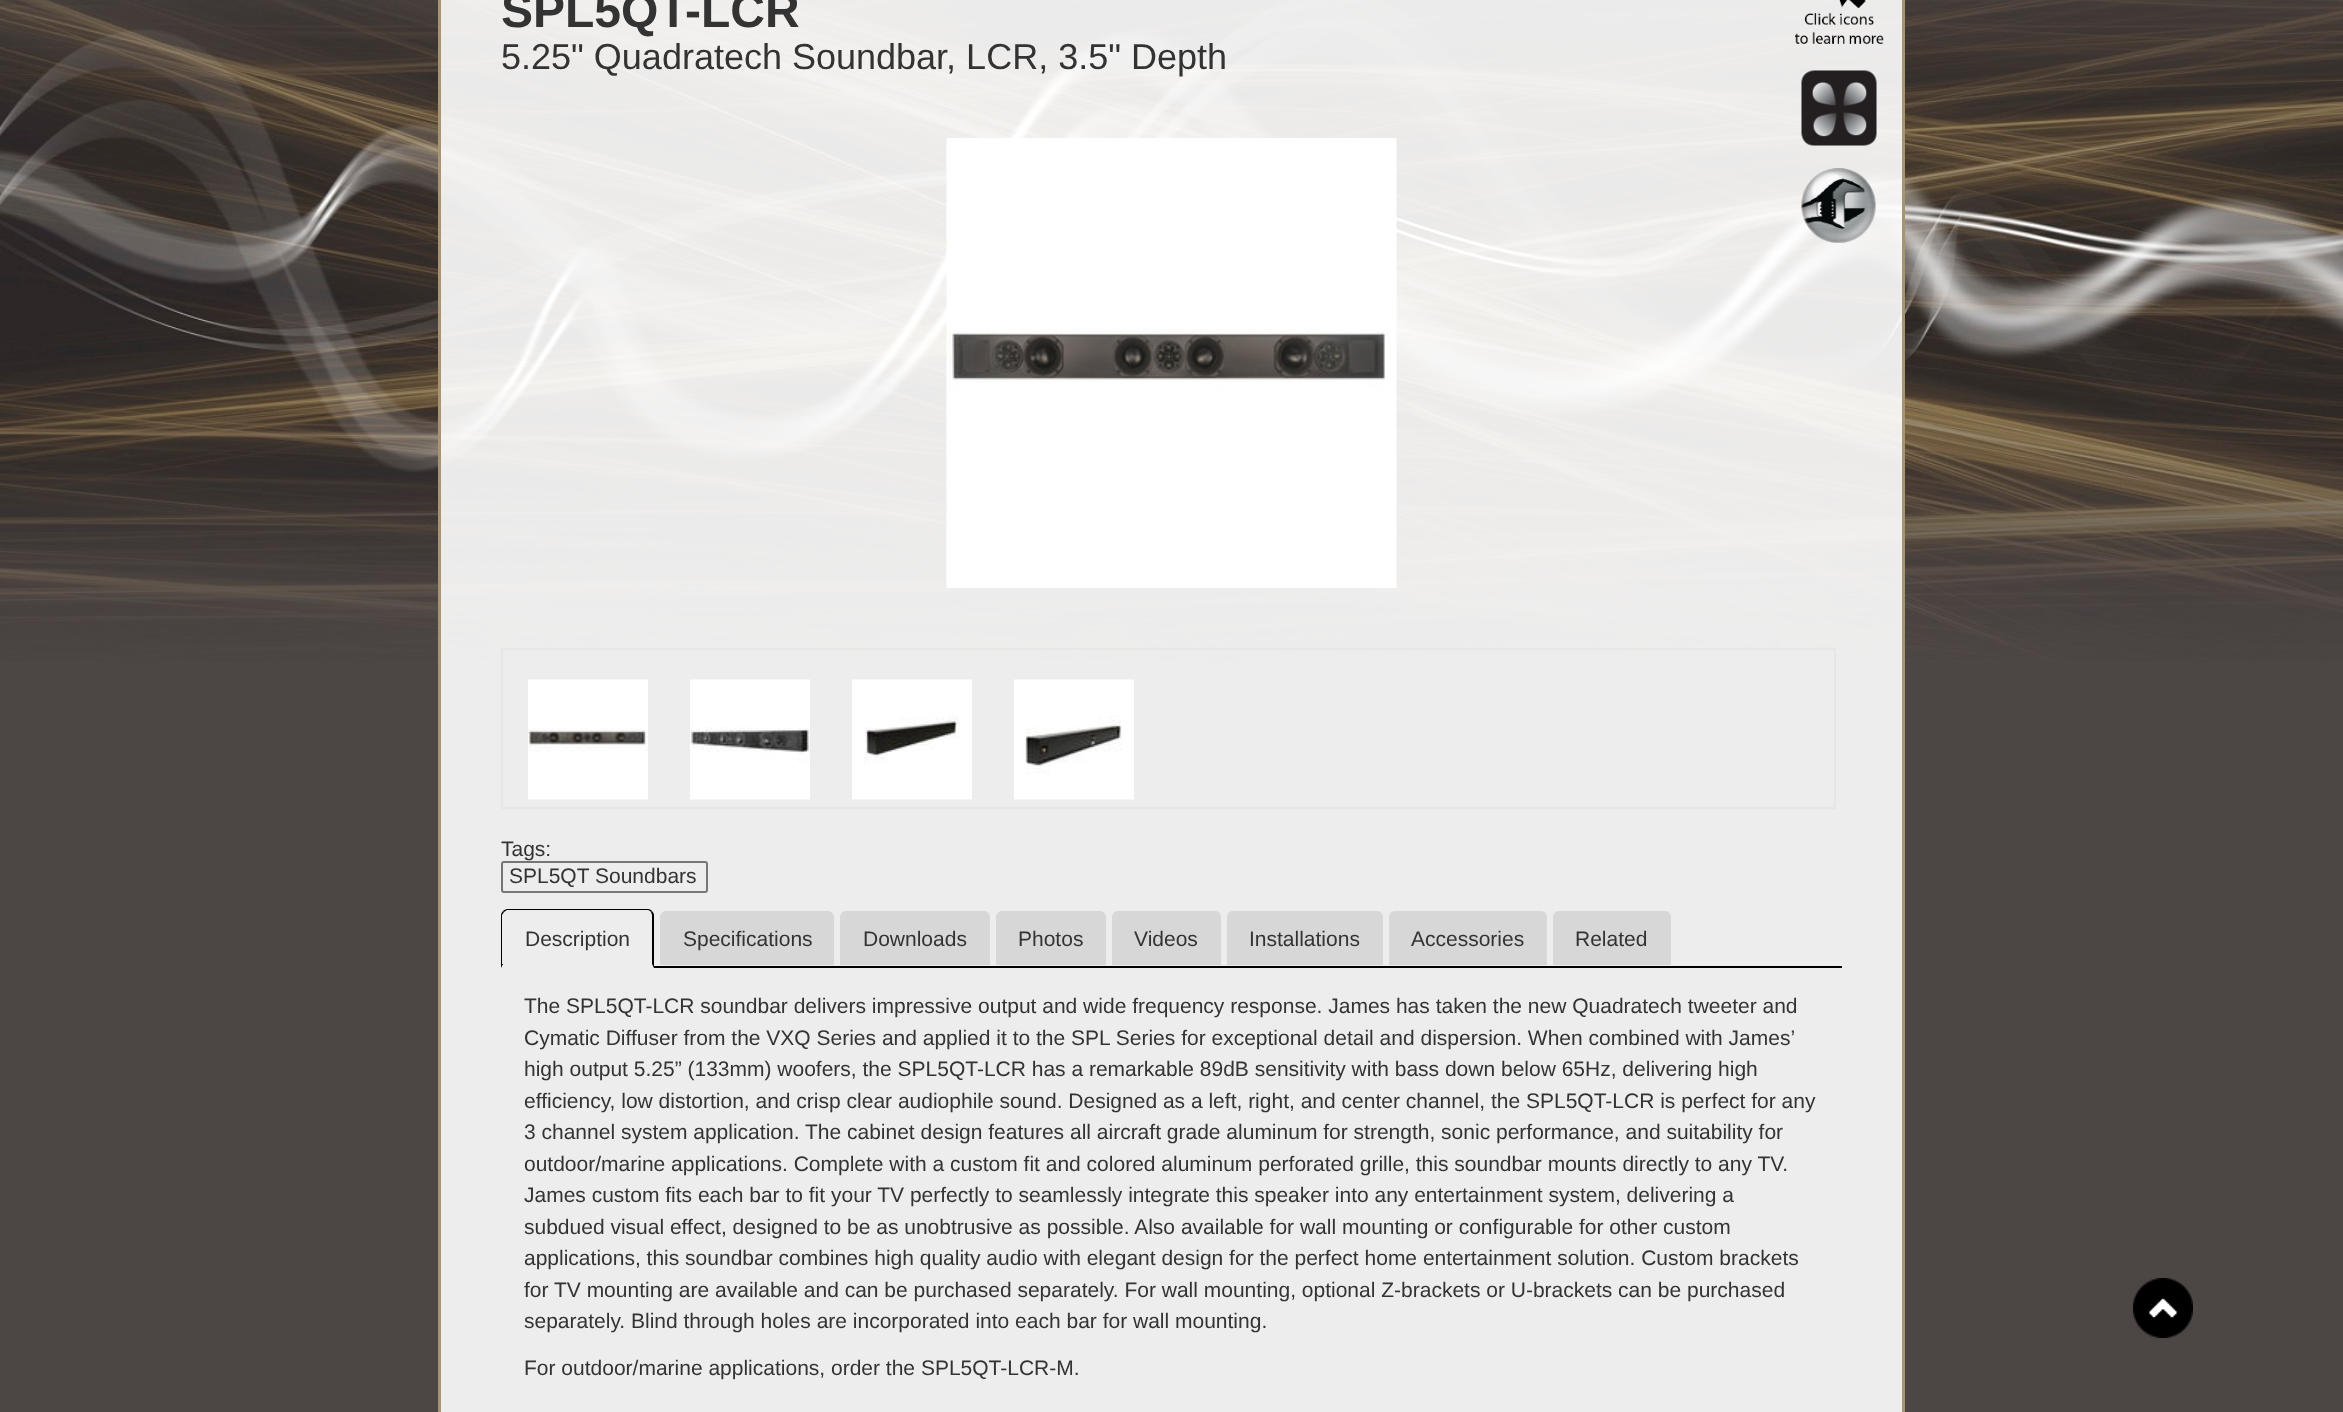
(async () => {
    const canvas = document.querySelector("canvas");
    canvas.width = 2343;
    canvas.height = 1412;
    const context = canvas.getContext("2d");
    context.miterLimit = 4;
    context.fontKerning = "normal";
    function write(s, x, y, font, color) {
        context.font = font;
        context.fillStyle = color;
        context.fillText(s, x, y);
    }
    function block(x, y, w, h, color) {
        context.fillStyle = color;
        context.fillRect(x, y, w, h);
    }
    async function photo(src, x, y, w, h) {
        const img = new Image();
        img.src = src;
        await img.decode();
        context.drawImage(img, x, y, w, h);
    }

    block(0, 0, 2343, 1412, "rgb(76, 70, 69)");
    await photo("media/1.png", 0, 0, 2343, 662);
    context.fillStyle = "rgba(255, 255, 255, 0.9)";
    context.beginPath();
    context.rect(439.5, -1.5, 1464, 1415);
    context.fill();
    context.strokeStyle = "rgb(166, 149, 112)";
    context.lineWidth = 3;
    context.stroke();
    write("SPL5QT-LCR", 501, 27, "bold 48px Liberation Sans", "rgb(51, 51, 51)");
    write("5.25\" Quadratech Soundbar, LCR, 3.5\" Depth", 501, 69, "36px Liberation Sans", "rgb(51, 51, 51)");
    await photo("media/2.png", 1794, 0, 90, 44);
    await photo("media/3.png", 1801, 70, 76, 76);
    await photo("media/4.png", 1801, 168, 75, 75);
    await photo("media/5.png", 946, 138, 451, 450);
    context.strokeStyle = "rgb(230, 230, 230)";
    context.lineWidth = 2;
    context.strokeRect(502, 649, 1333, 159);
    await photo("media/6.png", 528, 679, 120, 121);
    await photo("media/7.png", 690, 679, 120, 121);
    await photo("media/8.png", 852, 679, 120, 121);
    await photo("media/9.png", 1014, 679, 120, 121);
    write("Tags:", 501, 856, "21px Liberation Sans", "rgb(51, 51, 51)");
    context.beginPath();
    context.roundRect(502, 862, 205, 30, 2);
    context.strokeStyle = "rgb(118, 118, 118)";
    context.stroke();
    write("SPL5QT Soundbars", 509, 883, "21px Liberation Sans", "rgb(51, 51, 51)");
    block(654, 966, 1188, 2, "rgb(0, 0, 0)");
    write("Description", 525, 946, "21px Liberation Sans", "rgb(51, 51, 51)");
    context.fillStyle = "rgb(0, 0, 0)";
    context.beginPath();
    context.moveTo(507, 909);
    context.bezierCurveTo(506, 909, 504, 910, 503, 911);
    context.lineTo(504, 912);
    context.lineTo(507, 910);
    context.lineTo(648, 910);
    context.bezierCurveTo(649, 910, 650, 911, 651, 912);
    context.lineTo(652, 911);
    context.bezierCurveTo(651, 910, 650, 909, 648, 909);
    context.closePath();
    context.fill();
    context.beginPath();
    context.moveTo(654, 968);
    context.lineTo(654, 915);
    context.bezierCurveTo(654, 914, 653, 912, 652, 911);
    context.lineTo(651, 912);
    context.lineTo(652, 915);
    context.lineTo(652, 964);
    context.closePath();
    context.fill();
    context.beginPath();
    context.moveTo(501, 968);
    context.lineTo(503, 964);
    context.lineTo(502, 964);
    context.lineTo(502, 915);
    context.lineTo(504, 912);
    context.lineTo(503, 911);
    context.bezierCurveTo(502, 912, 501, 914, 501, 915);
    context.closePath();
    context.fill();
    context.fillStyle = "rgb(215, 215, 215)";
    context.beginPath();
    context.roundRect(660, 911, 174, 54, [6, 6, 0, 0]);
    context.fill();
    write("Specifications", 683, 946, "21px Liberation Sans", "rgb(51, 51, 51)");
    context.fillStyle = "rgb(215, 215, 215)";
    context.beginPath();
    context.roundRect(840, 911, 150, 54, [6, 6, 0, 0]);
    context.fill();
    write("Downloads", 863, 946, "21px Liberation Sans", "rgb(51, 51, 51)");
    context.fillStyle = "rgb(215, 215, 215)";
    context.beginPath();
    context.roundRect(996, 911, 110, 54, [6, 6, 0, 0]);
    context.fill();
    write("Photos", 1018, 946, "21px Liberation Sans", "rgb(51, 51, 51)");
    context.fillStyle = "rgb(215, 215, 215)";
    context.beginPath();
    context.roundRect(1112, 911, 109, 54, [6, 6, 0, 0]);
    context.fill();
    write("Videos", 1134, 946, "21px Liberation Sans", "rgb(51, 51, 51)");
    context.fillStyle = "rgb(215, 215, 215)";
    context.beginPath();
    context.roundRect(1227, 911, 156, 54, [6, 6, 0, 0]);
    context.fill();
    write("Installations", 1249, 946, "21px Liberation Sans", "rgb(51, 51, 51)");
    context.fillStyle = "rgb(215, 215, 215)";
    context.beginPath();
    context.roundRect(1389, 911, 158, 54, [6, 6, 0, 0]);
    context.fill();
    write("Accessories", 1411, 946, "21px Liberation Sans", "rgb(51, 51, 51)");
    context.fillStyle = "rgb(215, 215, 215)";
    context.beginPath();
    context.roundRect(1553, 911, 118, 54, [6, 6, 0, 0]);
    context.fill();
    write("Related", 1575, 946, "21px Liberation Sans", "rgb(51, 51, 51)");
    write("The SPL5QT-LCR soundbar delivers impressive output and wide frequency response. James has taken the new Quadratech tweeter and", 524, 1013, "21px Liberation Sans", "rgb(51, 51, 51)");
    write("Cymatic Diffuser from the VXQ Series and applied it to the SPL Series for exceptional detail and dispersion. When combined with James’", 524, 1045, "21px Liberation Sans", "rgb(51, 51, 51)");
    write("high output 5.25” (133mm) woofers, the SPL5QT-LCR has a remarkable 89dB sensitivity with bass down below 65Hz, delivering high", 524, 1076, "21px Liberation Sans", "rgb(51, 51, 51)");
    write("efficiency, low distortion, and crisp clear audiophile sound. Designed as a left, right, and center channel, the SPL5QT-LCR is perfect for any", 524, 1108, "21px Liberation Sans", "rgb(51, 51, 51)");
    write("3 channel system application. The cabinet design features all aircraft grade aluminum for strength, sonic performance, and suitability for", 524, 1139, "21px Liberation Sans", "rgb(51, 51, 51)");
    write("outdoor/marine applications. Complete with a custom fit and colored aluminum perforated grille, this soundbar mounts directly to any TV.", 524, 1171, "21px Liberation Sans", "rgb(51, 51, 51)");
    write("James custom fits each bar to fit your TV perfectly to seamlessly integrate this speaker into any entertainment system, delivering a", 524, 1202, "21px Liberation Sans", "rgb(51, 51, 51)");
    write("subdued visual effect, designed to be as unobtrusive as possible. Also available for wall mounting or configurable for other custom", 524, 1234, "21px Liberation Sans", "rgb(51, 51, 51)");
    write("applications, this soundbar combines high quality audio with elegant design for the perfect home entertainment solution. Custom brackets", 524, 1265, "21px Liberation Sans", "rgb(51, 51, 51)");
    write("for TV mounting are available and can be purchased separately. For wall mounting, optional Z-brackets or U-brackets can be purchased", 524, 1297, "21px Liberation Sans", "rgb(51, 51, 51)");
    write("separately. Blind through holes are incorporated into each bar for wall mounting.", 524, 1328, "21px Liberation Sans", "rgb(51, 51, 51)");
    write("For outdoor/marine applications, order the SPL5QT-LCR-M.", 524, 1375, "21px Liberation Sans", "rgb(51, 51, 51)");
    await photo("media/10.png", 2133, 1278, 60, 60);
})();
